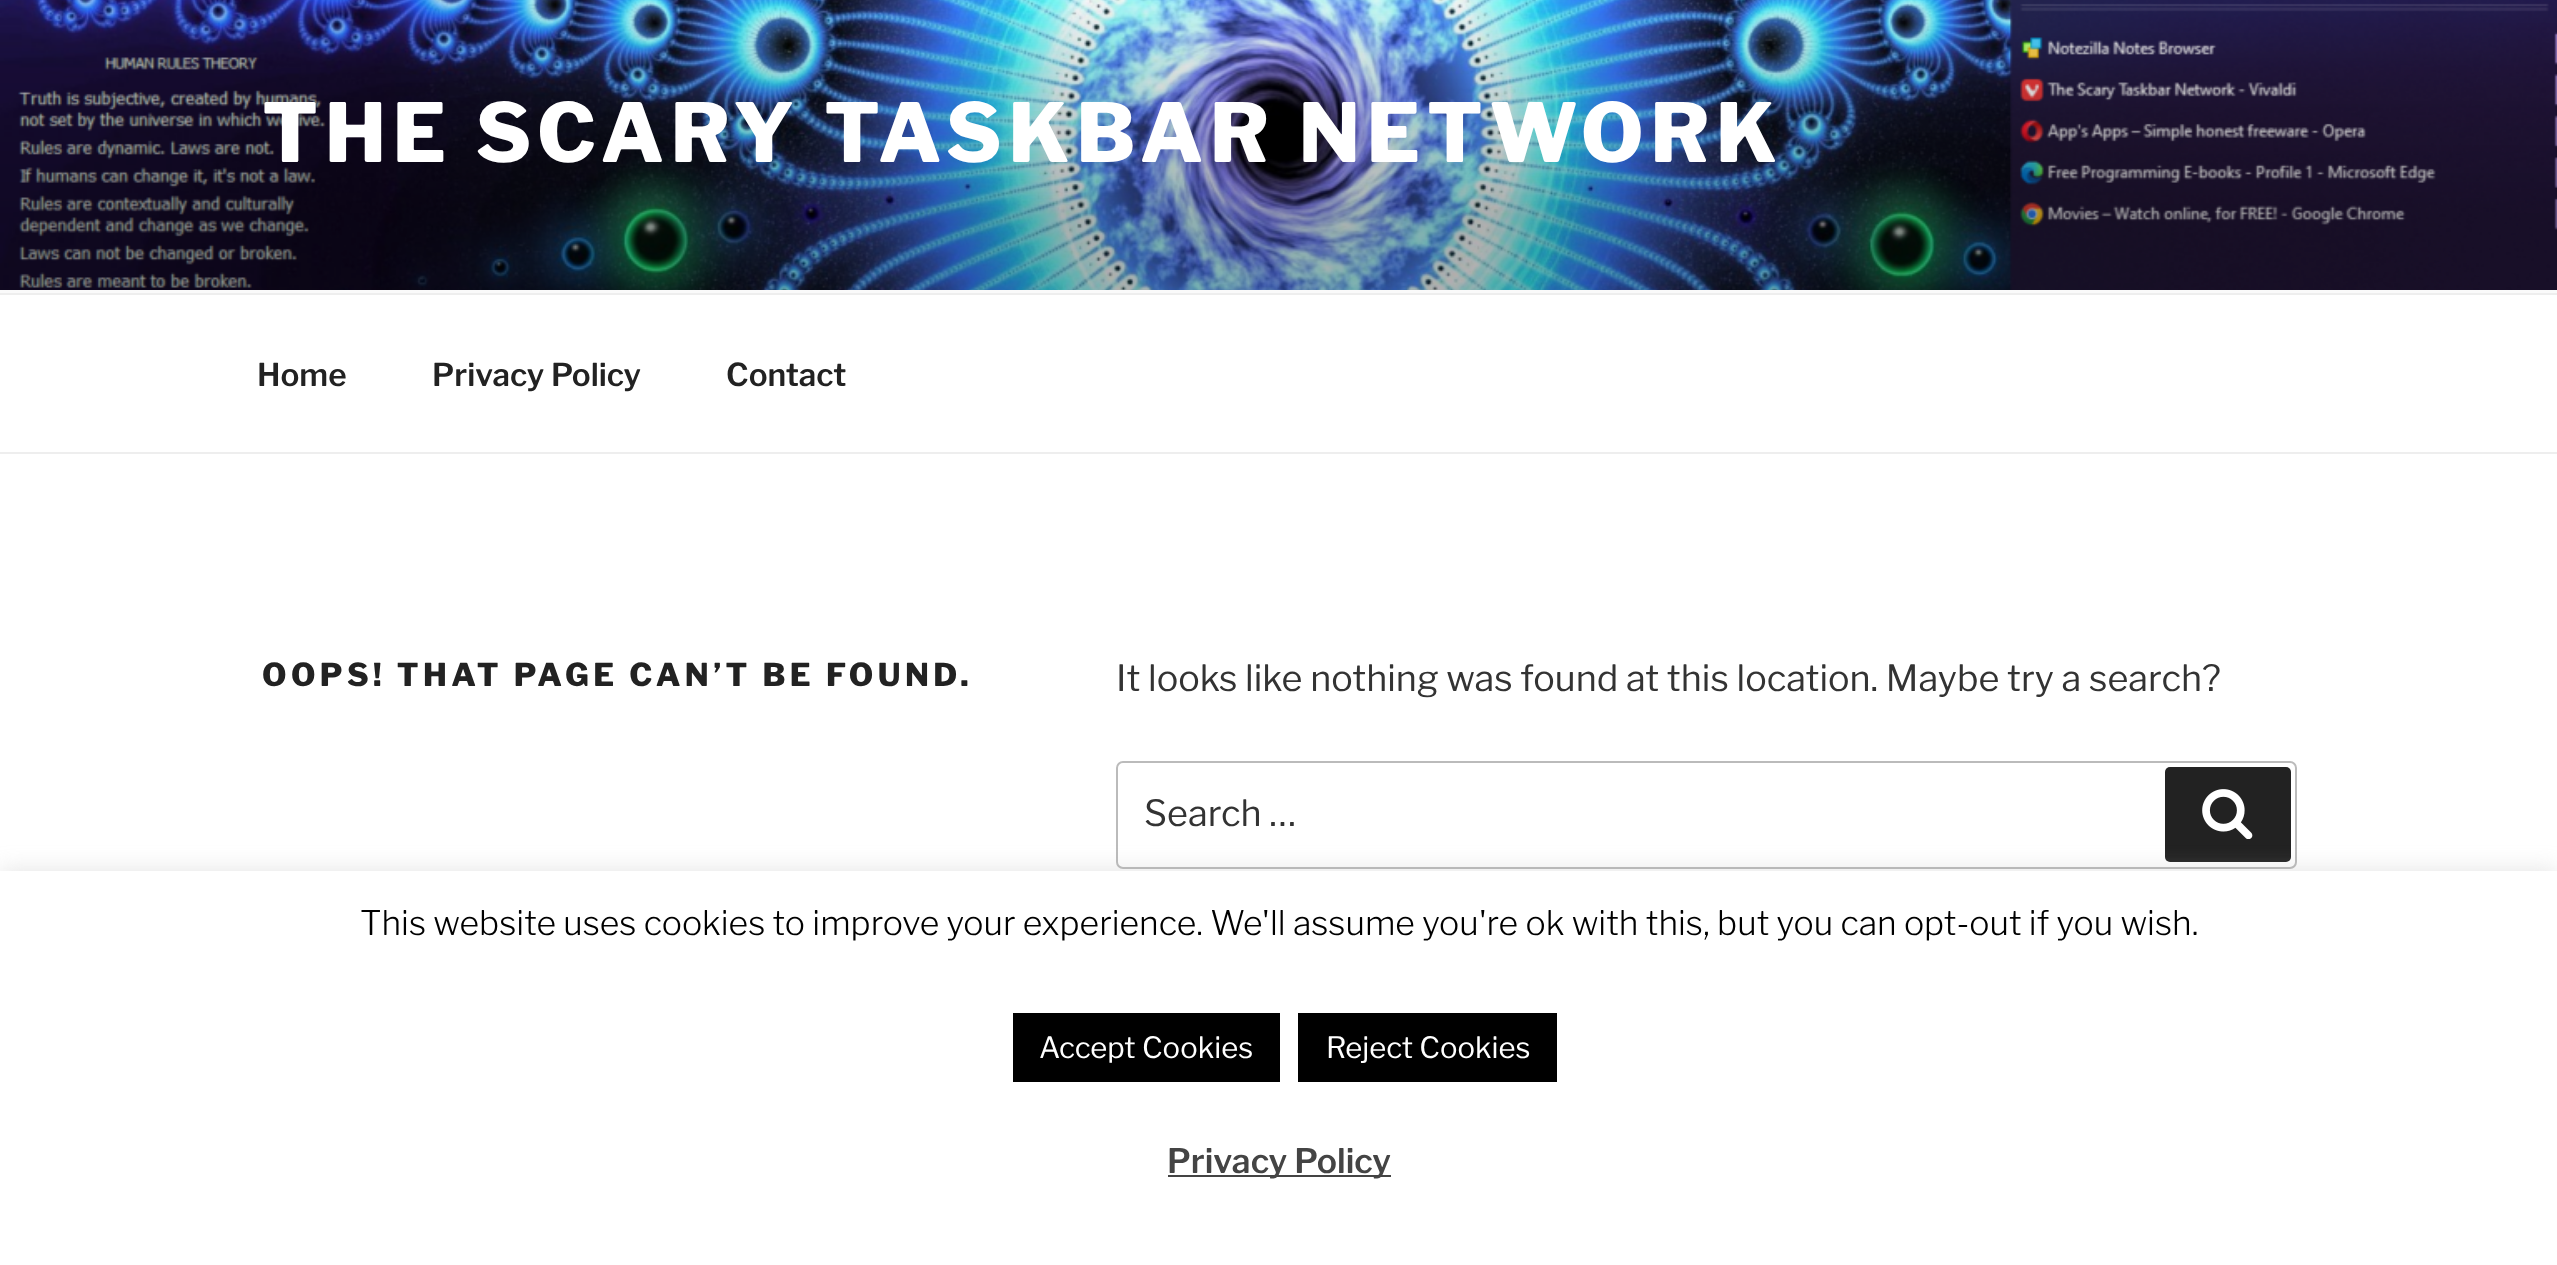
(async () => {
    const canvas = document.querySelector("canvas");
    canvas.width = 2557;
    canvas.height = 1265;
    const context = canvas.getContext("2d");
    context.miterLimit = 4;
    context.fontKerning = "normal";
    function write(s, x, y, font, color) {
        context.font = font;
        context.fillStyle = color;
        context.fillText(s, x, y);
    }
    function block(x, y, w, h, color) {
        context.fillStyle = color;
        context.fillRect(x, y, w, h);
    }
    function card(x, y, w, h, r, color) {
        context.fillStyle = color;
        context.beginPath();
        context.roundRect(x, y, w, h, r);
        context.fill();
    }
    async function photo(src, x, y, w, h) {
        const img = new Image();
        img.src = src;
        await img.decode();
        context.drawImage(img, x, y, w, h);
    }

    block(0, 0, 2557, 1265, "rgb(255, 255, 255)");
    block(0, 290, 2557, 3, "rgb(250, 250, 250)");
    await photo("media/1.png", 0, 0, 2557, 290);
    context.letterSpacing = "6.5px";
    write("THE SCARY TASKBAR NETWORK", 262, 162, "100 81px Libre Franklin", "rgb(255, 255, 255)");
    block(0, 293, 2557, 2, "rgb(238, 238, 238)");
    block(0, 452, 2557, 2, "rgb(238, 238, 238)");
    context.letterSpacing = "0px";
    write("Home", 257, 386, "100 31.5px 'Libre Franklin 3'", "rgb(34, 34, 34)");
    write("Privacy Policy", 432, 386, "100 31.5px 'Libre Franklin 3'", "rgb(34, 34, 34)");
    write("Contact", 726, 386, "100 31.5px 'Libre Franklin 3'", "rgb(34, 34, 34)");
    context.letterSpacing = "4.4px";
    write("OOPS! THAT PAGE CAN’T BE FOUND.", 262, 686, "100 31.5px Libre Franklin", "rgb(34, 34, 34)");
    context.letterSpacing = "0px";
    write("It looks like nothing was found at this location. Maybe try a search?", 1116, 691, "100 36px 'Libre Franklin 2'", "rgb(51, 51, 51)");
    context.beginPath();
    context.roundRect(1117, 762, 1179, 106, 6);
    context.strokeStyle = "rgb(187, 187, 187)";
    context.lineWidth = 2;
    context.stroke();
    write("Search …", 1144, 826, "100 36px 'Libre Franklin 2'", "rgb(51, 51, 51)");
    card(2165, 767, 126, 95, 5, "rgb(34, 34, 34)");
    await photo("media/2.png", 2202, 789, 51, 50);
    context.fillStyle = "rgba(172, 171, 171, 0.3)";
    context.filter = "blur(11px)";
    context.beginPath();
    context.rect(0, 869, 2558, 396);
    context.fill();
    context.filter = "none";
    block(0, 871, 2557, 394, "rgb(255, 255, 255)");
    write("This website uses cookies to improve your experience. We'll assume you're ok with this, but you can opt-out if you wish.", 360, 935, "100 33.75px 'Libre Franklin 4'", "rgb(0, 0, 0)");
    block(1013, 1013, 267, 69, "rgb(0, 0, 0)");
    write("Accept Cookies", 1039, 1058, "100 29.25px 'Libre Franklin 2'", "rgb(255, 255, 255)");
    block(1298, 1013, 259, 69, "rgb(0, 0, 0)");
    write("Reject Cookies", 1326, 1058, "100 29.25px 'Libre Franklin 2'", "rgb(255, 255, 255)");
    block(1168, 1175, 223, 2, "rgb(68, 68, 68)");
    write("Privacy Policy", 1167, 1173, "100 33.75px 'Libre Franklin 3'", "rgb(68, 68, 68)");
})();
